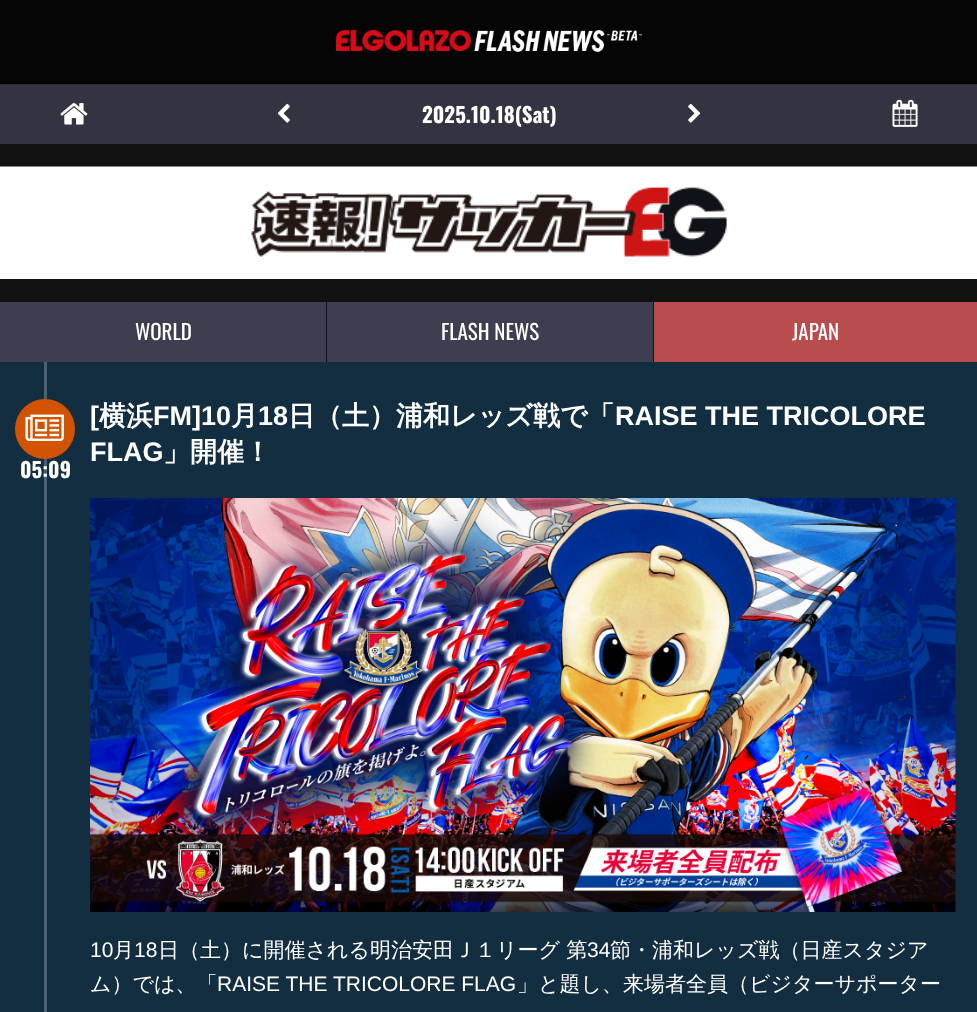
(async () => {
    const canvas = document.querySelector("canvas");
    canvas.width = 977;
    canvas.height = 1012;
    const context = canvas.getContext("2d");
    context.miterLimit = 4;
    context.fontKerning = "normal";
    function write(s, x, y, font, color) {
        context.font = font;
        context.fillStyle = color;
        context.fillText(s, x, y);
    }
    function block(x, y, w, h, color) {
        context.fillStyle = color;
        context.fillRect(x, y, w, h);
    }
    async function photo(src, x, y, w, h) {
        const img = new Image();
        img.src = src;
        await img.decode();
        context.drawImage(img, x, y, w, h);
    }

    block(0, 0, 977, 1012, "rgb(18, 18, 18)");
    block(0, 0, 977, 83, "rgb(5, 5, 5)");
    block(0, 83, 977, 1, "rgb(0, 0, 0)");
    block(0, 84, 977, 1, "rgb(47, 47, 60)");
    await photo("media/1.png", 336, 30, 306, 22);
    block(0, 85, 977, 59, "rgb(51, 51, 65)");
    await photo("media/2.png", 60, 103, 28, 22);
    await photo("media/3.png", 277, 103, 13, 20);
    write("2025.10.18(Sat)", 422, 123, "bold 21px Oswald", "rgb(255, 255, 255)");
    await photo("media/4.png", 688, 103, 13, 20);
    await photo("media/5.png", 892, 99, 26, 28);
    await photo("media/6.png", 0, 166, 977, 113);
    block(0, 302, 326, 60, "rgb(62, 62, 80)");
    write("WORLD", 135, 340, "21px Oswald", "rgb(255, 255, 255)");
    block(327, 302, 326, 60, "rgb(62, 62, 80)");
    write("FLASH NEWS", 441, 340, "21px Oswald", "rgb(255, 255, 255)");
    block(654, 302, 323, 60, "rgb(185, 76, 76)");
    write("JAPAN", 792, 340, "21px Oswald", "rgb(255, 255, 255)");
    block(0, 362, 977, 650, "rgb(18, 46, 64)");
    block(44, 362, 3, 650, "rgb(77, 98, 112)");
    write("[", 90, 425, "bold 27px Liberation Sans", "rgb(255, 255, 255)");
    write("横浜", 99, 425, "bold 27px WenQuanYi Zen Hei", "rgb(255, 255, 255)");
    write("FM]10", 153, 425, "bold 27px Liberation Sans", "rgb(255, 255, 255)");
    write("月", 231, 425, "bold 27px WenQuanYi Zen Hei", "rgb(255, 255, 255)");
    write("18", 258, 425, "bold 27px Liberation Sans", "rgb(255, 255, 255)");
    write("日（土）浦和レッズ戦で「", 288, 425, "bold 27px WenQuanYi Zen Hei", "rgb(255, 255, 255)");
    write("RAISE THE TRICOLORE", 615, 425, "bold 27px Liberation Sans", "rgb(255, 255, 255)");
    write("FLAG", 90, 461, "bold 27px Liberation Sans", "rgb(255, 255, 255)");
    write("」開催！", 163, 461, "bold 27px WenQuanYi Zen Hei", "rgb(255, 255, 255)");
    context.fillStyle = "rgb(211, 84, 0)";
    context.beginPath();
    context.arc(45, 429, 30, 0, Math.PI * 2);
    context.fill();
    await photo("media/7.png", 25, 414, 39, 27);
    write("05:09", 20, 478, "bold 21px Oswald", "rgb(255, 255, 255)");
    await photo("media/8.png", 90, 498, 866, 414);
    write("10", 90, 957, "21px Liberation Sans", "rgb(255, 255, 255)");
    write("月", 113, 957, "500 21px WenQuanYi Zen Hei", "rgb(255, 255, 255)");
    write("18", 134, 957, "21px Liberation Sans", "rgb(255, 255, 255)");
    write("日（土）に開催される明治安田Ｊ１リーグ 第", 158, 957, "500 21px WenQuanYi Zen Hei", "rgb(255, 255, 255)");
    write("34", 587, 957, "21px Liberation Sans", "rgb(255, 255, 255)");
    write("節・浦和レッズ戦（日産スタジア", 610, 957, "500 21px WenQuanYi Zen Hei", "rgb(255, 255, 255)");
    write("ム）では、「", 90, 991, "500 21px WenQuanYi Zen Hei", "rgb(255, 255, 255)");
    write("RAISE THE TRICOLORE FLAG", 217, 991, "21px Liberation Sans", "rgb(255, 255, 255)");
    write("」と題し、来場者全員（ビジターサポーター", 517, 991, "500 21px WenQuanYi Zen Hei", "rgb(255, 255, 255)");
})();
